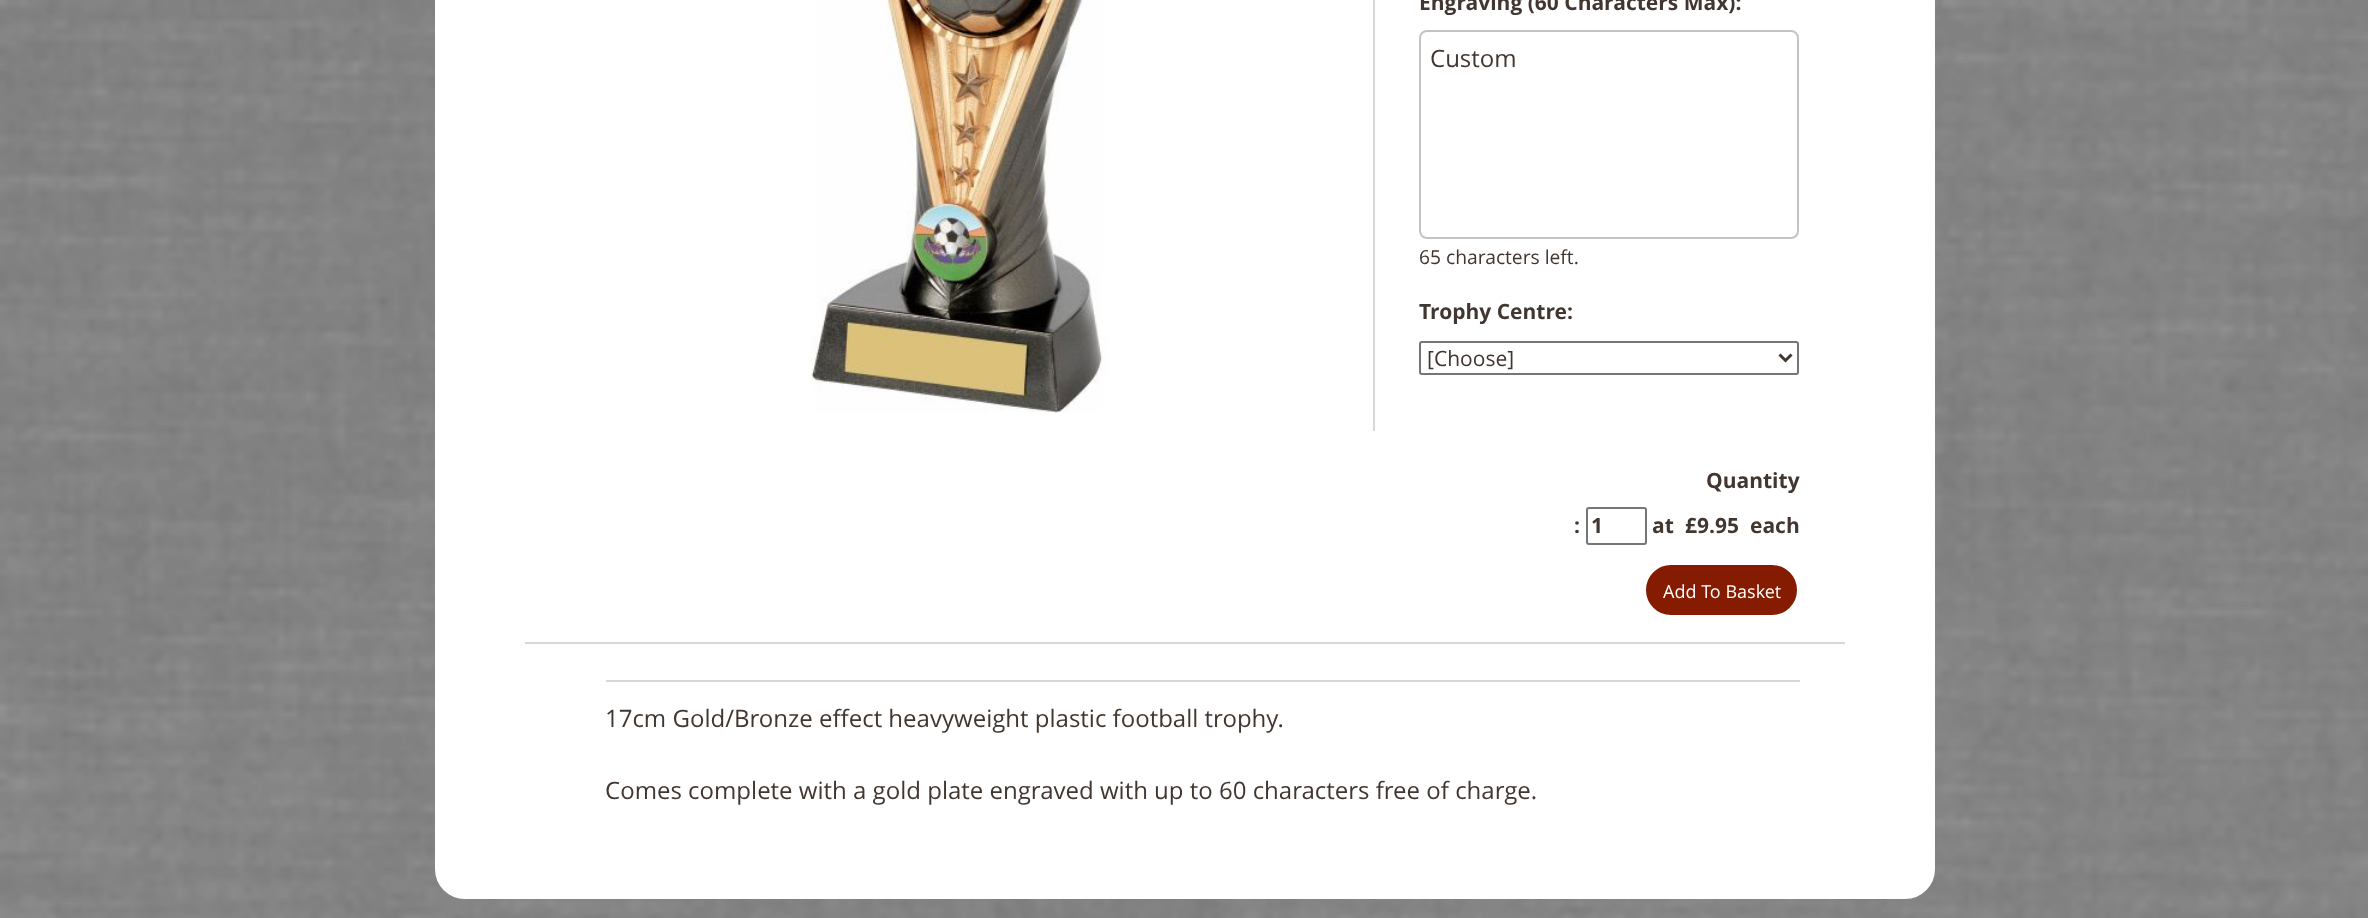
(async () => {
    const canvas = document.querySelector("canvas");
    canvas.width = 2368;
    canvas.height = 918;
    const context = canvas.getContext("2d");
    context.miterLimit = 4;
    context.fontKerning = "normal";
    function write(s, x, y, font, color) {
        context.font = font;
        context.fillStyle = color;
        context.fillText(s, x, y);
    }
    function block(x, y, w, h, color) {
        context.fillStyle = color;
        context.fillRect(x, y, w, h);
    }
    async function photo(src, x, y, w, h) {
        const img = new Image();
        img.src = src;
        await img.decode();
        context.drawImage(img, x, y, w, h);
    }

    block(0, 0, 2368, 918, "rgb(255, 255, 255)");
    await photo("media/1.png", 0, 0, 2368, 918);
    context.beginPath();
    context.roundRect(442.5, -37.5, 1485, 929, 22.5);
    context.fill();
    context.strokeStyle = "rgb(255, 255, 255)";
    context.lineWidth = 15;
    context.stroke();
    block(1373, 0, 2, 431, "rgb(215, 215, 215)");
    await photo("media/2.png", 810, 0, 298, 413);
    write("Engraving (60 Characters Max):", 1419, 10, "bold 21px Open Sans", "rgb(66, 54, 48)");
    context.beginPath();
    context.roundRect(1420, 31, 378, 207, 7);
    context.strokeStyle = "rgb(195, 195, 195)";
    context.lineWidth = 2;
    context.stroke();
    write("Custom", 1430, 67, "24px Open Sans", "rgb(66, 54, 48)");
    write("65 characters left.", 1419, 264, "19.25px Open Sans", "rgb(66, 54, 48)");
    write("Trophy Centre:", 1419, 319, "bold 21px Open Sans", "rgb(66, 54, 48)");
    context.beginPath();
    context.roundRect(1420, 342, 378, 32, 2);
    context.strokeStyle = "rgb(118, 118, 118)";
    context.stroke();
    context.beginPath();
    context.moveTo(1779.5, 354.5);
    context.lineTo(1785.5, 360.5);
    context.lineTo(1791.5, 354.5);
    context.strokeStyle = "rgb(66, 54, 48)";
    context.lineWidth = 3;
    context.stroke();
    write("[Choose]", 1427, 366, "21px Open Sans", "rgb(66, 54, 48)");
    write("Quantity", 1706, 488, "bold 21px Open Sans", "rgb(66, 54, 48)");
    write(":", 1574, 533, "bold 21px Open Sans", "rgb(66, 54, 48)");
    context.beginPath();
    context.roundRect(1587, 508, 59, 36, 2);
    context.strokeStyle = "rgb(118, 118, 118)";
    context.lineWidth = 2;
    context.stroke();
    write("1", 1591, 533, "bold 21px Open Sans", "rgb(66, 54, 48)");
    write("at", 1652, 533, "bold 21px Open Sans", "rgb(66, 54, 48)");
    write("£9.95", 1685, 533, "bold 21px Open Sans", "rgb(66, 54, 48)");
    write("each", 1750, 533, "bold 21px Open Sans", "rgb(66, 54, 48)");
    context.fillStyle = "rgb(133, 27, 0)";
    context.beginPath();
    context.roundRect(1645, 564, 153, 52, 26);
    context.fill();
    context.strokeStyle = "rgb(255, 255, 255)";
    context.stroke();
    write("Add To Basket", 1663, 598, "18px Open Sans", "rgb(255, 255, 255)");
    block(525, 642, 1320, 2, "rgb(215, 215, 215)");
    block(606, 680, 1194, 2, "rgb(215, 215, 215)");
    write("17cm Gold/Bronze effect heavyweight plastic football trophy.", 605, 727, "24px Open Sans", "rgb(66, 54, 48)");
    write("Comes complete with a gold plate engraved with up to 60 characters free of charge.", 605, 799, "24px Open Sans", "rgb(66, 54, 48)");
})();
